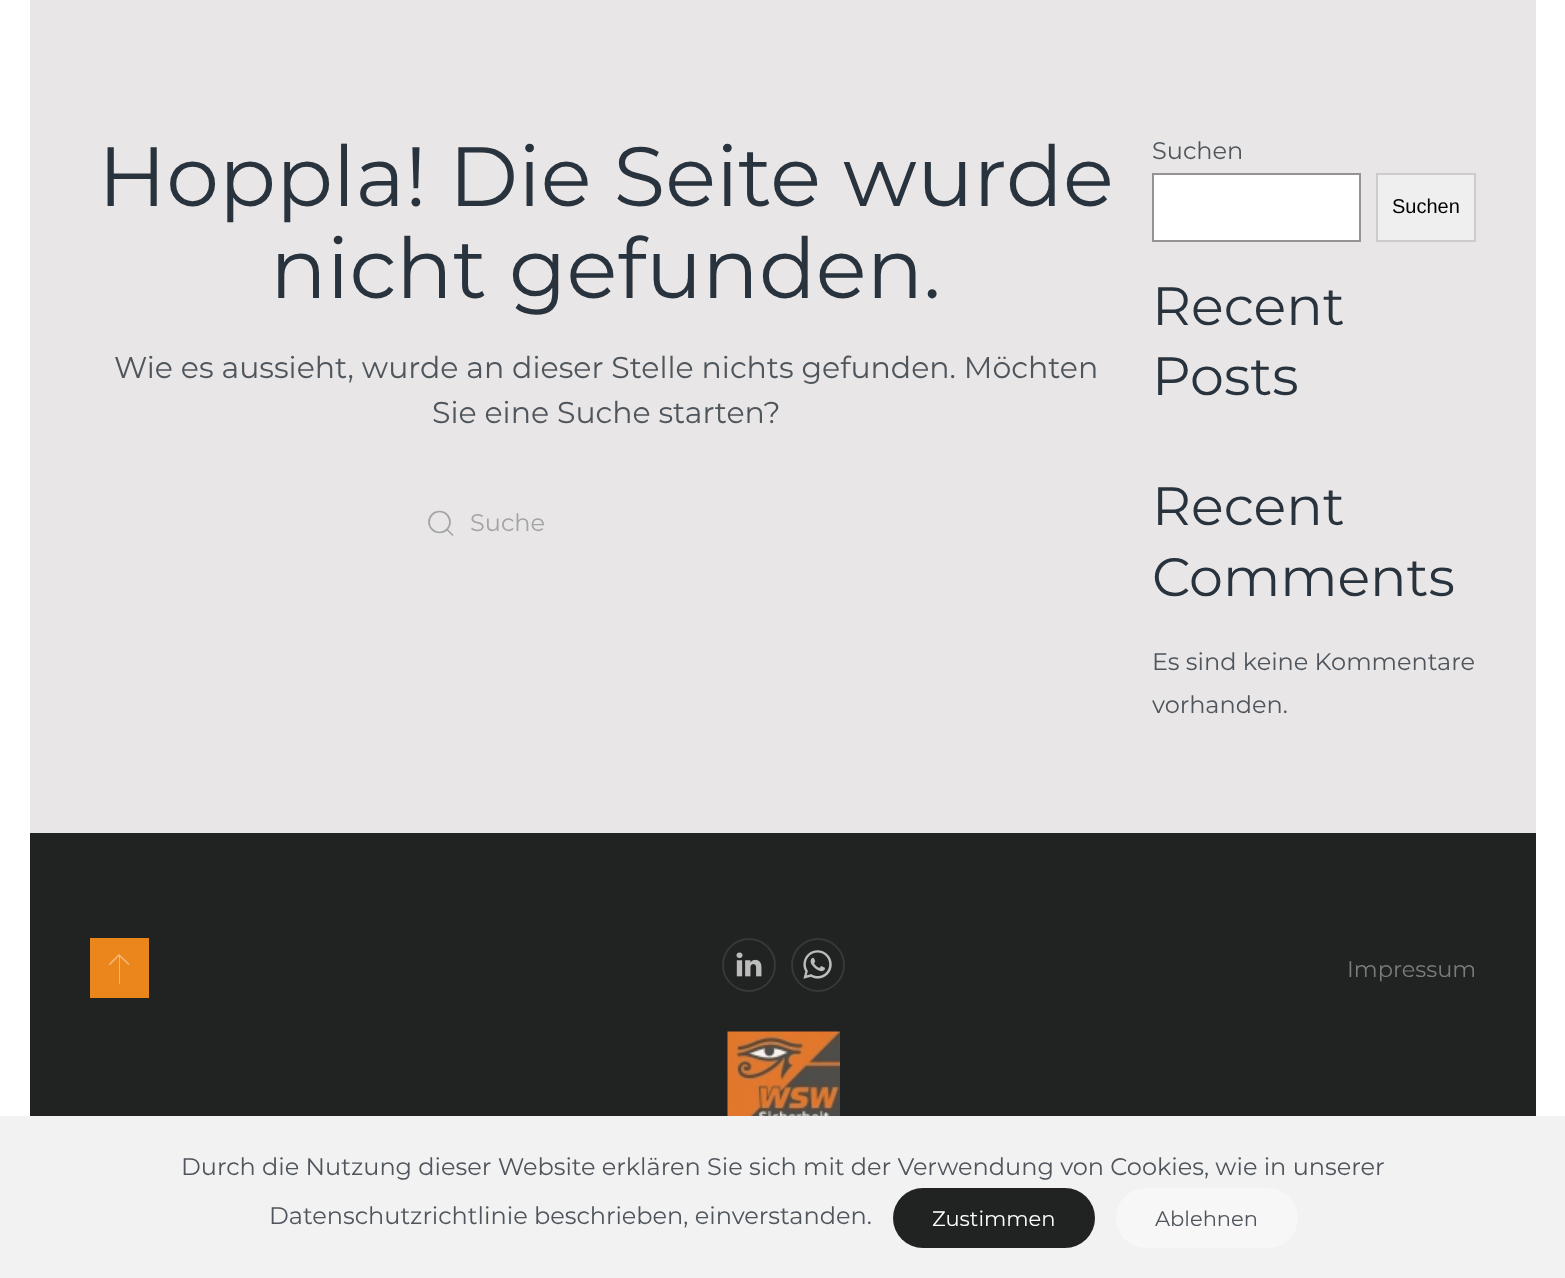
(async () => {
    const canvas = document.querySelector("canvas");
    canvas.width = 1565;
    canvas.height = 1278;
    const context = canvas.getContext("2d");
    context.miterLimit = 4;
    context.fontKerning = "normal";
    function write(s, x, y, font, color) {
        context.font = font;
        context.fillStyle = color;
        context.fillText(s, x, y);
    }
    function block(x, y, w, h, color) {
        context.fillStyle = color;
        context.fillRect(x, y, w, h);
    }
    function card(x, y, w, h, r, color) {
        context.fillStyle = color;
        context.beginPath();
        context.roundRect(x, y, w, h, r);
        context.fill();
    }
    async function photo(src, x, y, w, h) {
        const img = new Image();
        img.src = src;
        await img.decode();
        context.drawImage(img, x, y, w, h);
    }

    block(0, 0, 1565, 1278, "rgb(255, 255, 255)");
    block(30, 0, 1506, 833, "rgb(232, 230, 230)");
    write("Hoppla! Die Seite wurde", 98, 206, "100 84px Montserrat", "rgb(40, 51, 62)");
    write("nicht gefunden.", 270, 298, "100 84px Montserrat", "rgb(40, 51, 62)");
    write("Wie es aussieht, wurde an dieser Stelle nichts gefunden. Möchten", 114, 378, "100 30px Montserrat", "rgb(78, 85, 92)");
    write("Sie eine Suche starten?", 432, 423, "100 30px Montserrat", "rgb(78, 85, 92)");
    context.beginPath();
    context.arc(439.5, 522, 10.5, 0, Math.PI * 2);
    context.strokeStyle = "rgb(163, 164, 168)";
    context.lineWidth = 1.7;
    context.stroke();
    context.beginPath();
    context.moveTo(447, 529.5);
    context.lineTo(453, 535.5);
    context.closePath();
    context.stroke();
    block(426, 551, 360, 2, "rgb(229, 229, 231)");
    write("Suche", 470, 531, "100 24px Montserrat", "rgb(163, 164, 168)");
    write("Suchen", 1152, 159, "100 24px Montserrat", "rgb(78, 85, 92)");
    context.fillStyle = "rgb(255, 255, 255)";
    context.beginPath();
    context.rect(1153, 174, 207, 67);
    context.fill();
    context.strokeStyle = "rgb(148, 148, 148)";
    context.lineWidth = 2;
    context.stroke();
    context.fillStyle = "rgb(239, 239, 239)";
    context.beginPath();
    context.rect(1377, 174, 98, 67);
    context.fill();
    context.strokeStyle = "rgb(204, 204, 204)";
    context.stroke();
    write("Suchen", 1392, 213, "20px Liberation Sans", "rgb(0, 0, 0)");
    write("Recent", 1152, 325, "100 54px Montserrat", "rgb(40, 51, 62)");
    write("Posts", 1152, 395, "100 54px Montserrat", "rgb(40, 51, 62)");
    write("Recent", 1152, 525, "100 54px Montserrat", "rgb(40, 51, 62)");
    write("Comments", 1152, 596, "100 54px Montserrat", "rgb(40, 51, 62)");
    write("Es sind keine Kommentare", 1152, 670, "100 24px Montserrat", "rgb(78, 85, 92)");
    write("vorhanden.", 1152, 713, "100 24px Montserrat", "rgb(78, 85, 92)");
    block(30, 833, 1506, 283, "rgb(33, 35, 35)");
    block(90, 938, 59, 60, "rgb(234, 134, 27)");
    context.beginPath();
    context.moveTo(109.5, 964.5);
    context.lineTo(119, 955);
    context.lineTo(129, 964.5);
    context.strokeStyle = "rgb(242, 182, 118)";
    context.lineWidth = 1.7;
    context.stroke();
    block(119, 956, 1, 28, "rgba(255, 255, 255, 0.4)");
    context.beginPath();
    context.arc(749, 965, 26, 0, Math.PI * 2);
    context.strokeStyle = "rgb(55, 57, 57)";
    context.lineWidth = 2;
    context.stroke();
    await photo("media/1.png", 736, 952, 26, 25);
    context.beginPath();
    context.arc(818, 965, 26, 0, Math.PI * 2);
    context.stroke();
    await photo("media/2.png", 803, 950, 29, 29);
    write("Impressum", 1347, 977, "100 22.5px Montserrat", "rgb(122, 123, 123)");
    await photo("media/3.png", 727, 1031, 113, 85);
    block(0, 1116, 1565, 162, "rgb(242, 242, 242)");
    write("Durch die Nutzung dieser Website erklären Sie sich mit der Verwendung von Cookies, wie in unserer", 181, 1175, "100 24px Montserrat", "rgb(78, 85, 92)");
    write("Datenschutzrichtlinie beschrieben, einverstanden.", 269, 1224, "100 24px Montserrat", "rgb(78, 85, 92)");
    card(893, 1188, 202, 60, 30, "rgb(33, 35, 35)");
    write("Zustimmen", 932, 1226, "100 21px Montserrat", "rgb(255, 255, 255)");
    card(1116, 1188, 182, 60, 30, "rgb(247, 247, 247)");
    write("Ablehnen", 1155, 1226, "100 21px Montserrat", "rgb(78, 85, 92)");
})();
